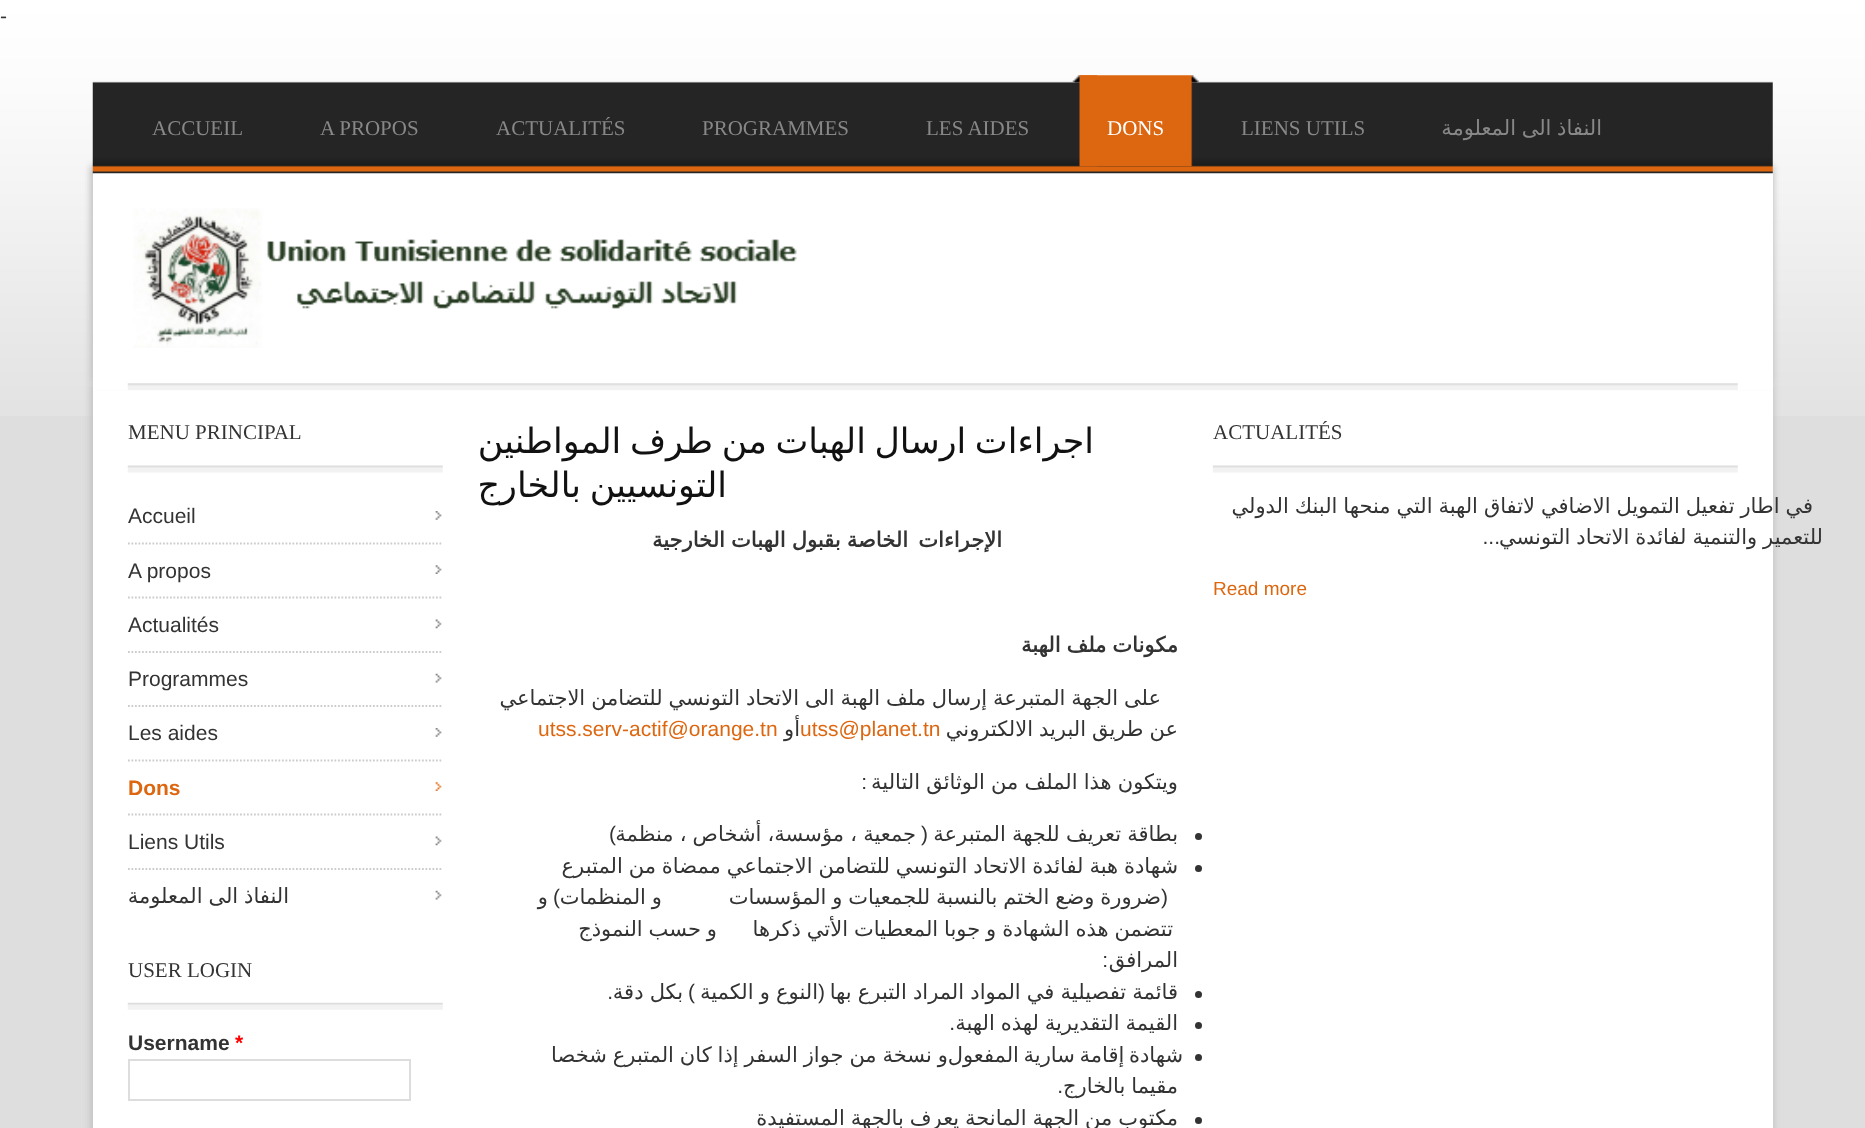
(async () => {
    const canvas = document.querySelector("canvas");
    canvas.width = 1865;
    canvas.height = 1128;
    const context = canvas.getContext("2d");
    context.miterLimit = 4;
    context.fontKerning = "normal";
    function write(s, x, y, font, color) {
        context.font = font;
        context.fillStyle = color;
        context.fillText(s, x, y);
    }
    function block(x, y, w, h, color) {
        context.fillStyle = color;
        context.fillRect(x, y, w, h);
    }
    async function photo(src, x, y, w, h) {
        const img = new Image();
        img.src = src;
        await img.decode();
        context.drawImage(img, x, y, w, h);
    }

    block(0, 0, 1865, 1128, "rgb(222, 222, 222)");
    await photo("media/1.png", 0, 0, 1865, 416);
    write("-", 0, 23, "21px Liberation Sans", "rgb(51, 51, 51)");
    context.fillStyle = "rgb(197, 197, 197)";
    context.filter = "blur(3.5px)";
    context.beginPath();
    context.rect(91, 385, 1680, 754);
    context.fill();
    context.filter = "none";
    context.filter = "blur(3.5px)";
    context.beginPath();
    context.rect(93, 385, 1680, 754);
    context.fill();
    context.filter = "none";
    block(93, 390, 1680, 738, "rgb(255, 255, 255)");
    context.fillStyle = "rgb(197, 197, 197)";
    context.filter = "blur(3.5px)";
    context.beginPath();
    context.rect(91, 166, 1680, 217);
    context.fill();
    context.filter = "none";
    context.filter = "blur(3.5px)";
    context.beginPath();
    context.rect(93, 166, 1680, 217);
    context.fill();
    context.filter = "none";
    block(93, 173, 1680, 217, "rgb(255, 255, 255)");
    await photo("media/2.png", 92, 81, 1681, 93);
    context.wordSpacing = "-1px";
    context.direction = "rtl";
    write("النفاذ الى المعلومة", 1602, 135, "21px DejaVu Sans", "rgb(136, 136, 136)");
    context.wordSpacing = "0px";
    context.direction = "ltr";
    write("LIENS UTILS", 1241, 135, "21px Liberation Serif", "rgb(136, 136, 136)");
    await photo("media/3.png", 1072, 75, 26, 92);
    await photo("media/4.png", 1079, 75, 120, 92);
    write("DONS", 1107, 135, "21px Liberation Serif", "rgb(255, 255, 255)");
    write("LES AIDES", 926, 135, "21px Liberation Serif", "rgb(136, 136, 136)");
    write("PROGRAMMES", 702, 135, "21px Liberation Serif", "rgb(136, 136, 136)");
    write("ACTUALITÉS", 496, 135, "21px Liberation Serif", "rgb(136, 136, 136)");
    write("A PROPOS", 320, 135, "21px Liberation Serif", "rgb(136, 136, 136)");
    write("ACCUEIL", 152, 135, "21px Liberation Serif", "rgb(136, 136, 136)");
    await photo("media/5.png", 127, 383, 1611, 7);
    await photo("media/6.png", 133, 208, 664, 140);
    await photo("media/7.png", 1212, 465, 526, 8);
    write("ACTUALITÉS", 1213, 439, "21px Liberation Serif", "rgb(51, 51, 51)");
    context.wordSpacing = "-0.75px";
    context.direction = "rtl";
    write("في اطار تفعيل التمويل الاضافي لاتفاق الهبة التي منحها البنك الدولي", 1813, 513, "21px DejaVu Sans", "rgb(51, 51, 51)");
    write("للتعمير والتنمية لفائدة الاتحاد التونسي", 1823, 544, "21px DejaVu Sans", "rgb(51, 51, 51)");
    context.wordSpacing = "0px";
    write("...", 1500, 544, "21px Liberation Sans", "rgb(51, 51, 51)");
    context.direction = "ltr";
    write("Read more", 1213, 595, "19px Liberation Sans", "rgb(221, 103, 16)");
    context.wordSpacing = "-2.5px";
    context.direction = "rtl";
    write("اجراءات ارسال الهبات من طرف المواطنين", 1094, 453, "34.9px DejaVu Sans", "rgb(17, 17, 17)");
    write("التونسيين بالخارج", 727, 497, "34.9px DejaVu Sans", "rgb(17, 17, 17)");
    context.wordSpacing = "0px";
    write("الإجراءات", 1002, 547, "bold 21px DejaVu Sans", "rgb(51, 51, 51)");
    context.wordSpacing = "-0.5px";
    write("الخاصة بقبول الهبات الخارجية", 908, 547, "bold 21px DejaVu Sans", "rgb(51, 51, 51)");
    context.wordSpacing = "-0.75px";
    write("مكونات ملف الهبة", 1178, 652, "bold 21px DejaVu Sans", "rgb(51, 51, 51)");
    write("على الجهة المتبرعة إرسال ملف الهبة الى الاتحاد التونسي للتضامن الاجتماعي", 1161, 705, "21px DejaVu Sans", "rgb(51, 51, 51)");
    write("عن طريق البريد الالكتروني", 1178, 736, "21px DejaVu Sans", "rgb(51, 51, 51)");
    context.wordSpacing = "0px";
    context.direction = "ltr";
    write("utss@planet.tn", 800, 736, "21px Liberation Sans", "rgb(221, 103, 16)");
    context.direction = "rtl";
    write("أو", 800, 736, "21px DejaVu Sans", "rgb(51, 51, 51)");
    context.direction = "ltr";
    write("utss.serv-actif@orange.tn", 538, 736, "21px Liberation Sans", "rgb(221, 103, 16)");
    context.wordSpacing = "-0.5px";
    context.direction = "rtl";
    write("ويتكون هذا الملف من الوثائق التالية", 1178, 789, "21px DejaVu Sans", "rgb(51, 51, 51)");
    context.wordSpacing = "0px";
    write(":", 867, 789, "21px Liberation Sans", "rgb(51, 51, 51)");
    context.beginPath();
    context.arc(1198.5, 836.5, 3.5, 0, Math.PI * 2);
    context.fill();
    context.wordSpacing = "-0.5px";
    write("بطاقة تعريف للجهة المتبرعة", 1178, 841, "21px DejaVu Sans", "rgb(51, 51, 51)");
    context.wordSpacing = "0px";
    write("(", 928, 841, "21px Liberation Sans", "rgb(51, 51, 51)");
    context.wordSpacing = "-0.5px";
    write("جمعية ، مؤسسة، أشخاص ، منظمة", 916, 841, "21px DejaVu Sans", "rgb(51, 51, 51)");
    context.wordSpacing = "0px";
    write(")", 616, 841, "21px Liberation Sans", "rgb(51, 51, 51)");
    context.beginPath();
    context.arc(1198.5, 868.5, 3.5, 0, Math.PI * 2);
    context.fill();
    context.wordSpacing = "-0.75px";
    write("شهادة هبة لفائدة الاتحاد التونسي للتضامن الاجتماعي ممضاة من المتبرع", 1178, 873, "21px DejaVu Sans", "rgb(51, 51, 51)");
    write("ضرورة وضع الختم بالنسبة للجمعيات و المؤسسات", 1161, 904, "21px DejaVu Sans", "rgb(51, 51, 51)");
    context.wordSpacing = "0px";
    write("(", 1168, 904, "21px Liberation Sans", "rgb(51, 51, 51)");
    context.wordSpacing = "-0.75px";
    write("و المنظمات", 662, 904, "21px DejaVu Sans", "rgb(51, 51, 51)");
    context.wordSpacing = "0px";
    write(")", 560, 904, "21px Liberation Sans", "rgb(51, 51, 51)");
    write("و", 548, 904, "21px DejaVu Sans", "rgb(51, 51, 51)");
    context.wordSpacing = "-0.75px";
    write("تتضمن هذه الشهادة و جوبا المعطيات الأتي ذكرها", 1173, 936, "21px DejaVu Sans", "rgb(51, 51, 51)");
    write("و حسب النموذج", 717, 936, "21px DejaVu Sans", "rgb(51, 51, 51)");
    context.wordSpacing = "0px";
    write("المرافق", 1178, 967, "21px DejaVu Sans", "rgb(51, 51, 51)");
    write(":", 1108, 967, "21px Liberation Sans", "rgb(51, 51, 51)");
    context.beginPath();
    context.arc(1198.5, 994.5, 3.5, 0, Math.PI * 2);
    context.fill();
    context.wordSpacing = "-0.5px";
    write("قائمة تفصيلية في المواد المراد التبرع بها", 1178, 999, "21px DejaVu Sans", "rgb(51, 51, 51)");
    context.wordSpacing = "0px";
    write("(", 825, 999, "21px Liberation Sans", "rgb(51, 51, 51)");
    context.wordSpacing = "-0.5px";
    write("النوع و الكمية", 818, 999, "21px DejaVu Sans", "rgb(51, 51, 51)");
    context.wordSpacing = "0px";
    write(")", 695, 999, "21px Liberation Sans", "rgb(51, 51, 51)");
    context.wordSpacing = "-0.5px";
    write("بكل دقة", 683, 999, "21px DejaVu Sans", "rgb(51, 51, 51)");
    context.wordSpacing = "0px";
    write(".", 613, 999, "21px Liberation Sans", "rgb(51, 51, 51)");
    context.beginPath();
    context.arc(1198.5, 1025.5, 3.5, 0, Math.PI * 2);
    context.fill();
    context.wordSpacing = "-0.75px";
    write("القيمة التقديرية لهذه الهبة", 1178, 1030, "21px DejaVu Sans", "rgb(51, 51, 51)");
    context.wordSpacing = "0px";
    write(".", 955, 1030, "21px Liberation Sans", "rgb(51, 51, 51)");
    context.beginPath();
    context.arc(1198.5, 1057.5, 3.5, 0, Math.PI * 2);
    context.fill();
    context.wordSpacing = "-2px";
    write("شهادة إقامة سارية المفعول", 1183, 1062, "21px DejaVu Sans", "rgb(51, 51, 51)");
    context.wordSpacing = "-0.75px";
    write("و نسخة من جواز السفر إذا كان المتبرع شخصا", 948, 1062, "21px DejaVu Sans", "rgb(51, 51, 51)");
    write("مقيما بالخارج", 1178, 1093, "21px DejaVu Sans", "rgb(51, 51, 51)");
    context.wordSpacing = "0px";
    write(".", 1063, 1093, "21px Liberation Sans", "rgb(51, 51, 51)");
    context.beginPath();
    context.arc(1198.5, 1120.5, 3.5, 0, Math.PI * 2);
    context.fill();
    context.wordSpacing = "-0.75px";
    write("مكتوب من الجهة المانحة يعرف بالجهة المستفيدة", 1178, 1125, "21px DejaVu Sans", "rgb(51, 51, 51)");
    await photo("media/8.png", 127, 465, 316, 8);
    context.wordSpacing = "0px";
    context.direction = "ltr";
    write("MENU PRINCIPAL", 128, 439, "21px Liberation Serif", "rgb(51, 51, 51)");
    context.beginPath();
    context.moveTo(128, 543.5);
    context.lineTo(443, 543.5);
    context.strokeStyle = "rgb(204, 204, 204)";
    context.lineWidth = 1.8;
    context.setLineDash([1.75, 1.75]);
    context.stroke();
    await photo("media/9.png", 435, 511, 7, 9);
    write("Accueil", 128, 523, "21px Liberation Sans", "rgb(51, 51, 51)");
    context.beginPath();
    context.moveTo(128, 597.5);
    context.lineTo(443, 597.5);
    context.stroke();
    await photo("media/10.png", 435, 565, 7, 9);
    write("A propos", 128, 578, "21px Liberation Sans", "rgb(51, 51, 51)");
    context.beginPath();
    context.moveTo(128, 652);
    context.lineTo(443, 652);
    context.stroke();
    await photo("media/11.png", 435, 619, 7, 10);
    write("Actualités", 128, 632, "21px Liberation Sans", "rgb(51, 51, 51)");
    context.beginPath();
    context.moveTo(128, 706);
    context.lineTo(443, 706);
    context.stroke();
    await photo("media/12.png", 435, 673, 7, 10);
    write("Programmes", 128, 686, "21px Liberation Sans", "rgb(51, 51, 51)");
    context.beginPath();
    context.moveTo(128, 760.5);
    context.lineTo(443, 760.5);
    context.stroke();
    await photo("media/9.png", 435, 728, 7, 9);
    write("Les aides", 128, 740, "21px Liberation Sans", "rgb(51, 51, 51)");
    context.beginPath();
    context.moveTo(128, 814.5);
    context.lineTo(443, 814.5);
    context.stroke();
    await photo("media/13.png", 435, 782, 7, 9);
    write("Dons", 128, 795, "bold 21px Liberation Sans", "rgb(221, 103, 16)");
    context.beginPath();
    context.moveTo(128, 869);
    context.lineTo(443, 869);
    context.stroke();
    await photo("media/11.png", 435, 836, 7, 10);
    write("Liens Utils", 128, 849, "21px Liberation Sans", "rgb(51, 51, 51)");
    await photo("media/12.png", 435, 890, 7, 10);
    context.wordSpacing = "-0.75px";
    context.direction = "rtl";
    write("النفاذ الى المعلومة", 289, 903, "21px DejaVu Sans", "rgb(51, 51, 51)");
    await photo("media/14.png", 127, 1002, 316, 8);
    context.wordSpacing = "0px";
    context.direction = "ltr";
    write("USER LOGIN", 128, 977, "21px Liberation Serif", "rgb(51, 51, 51)");
    write("*", 235, 1050, "bold 21px Liberation Sans", "rgb(255, 0, 0)");
    write("Username", 128, 1050, "bold 21px Liberation Sans", "rgb(51, 51, 51)");
    context.strokeStyle = "rgb(221, 221, 221)";
    context.lineWidth = 2;
    context.setLineDash([]);
    context.strokeRect(129, 1060, 281, 40);
})();
